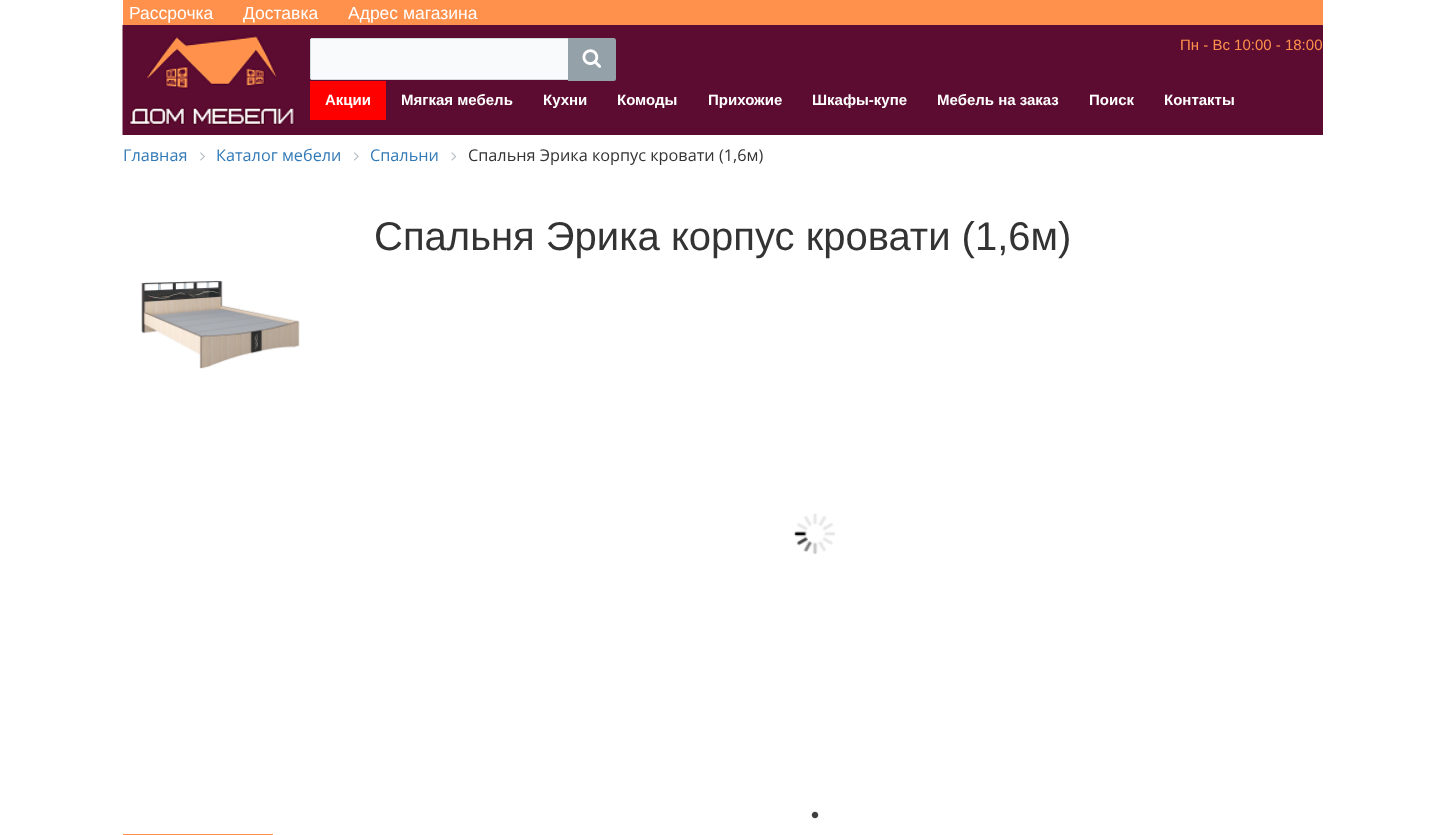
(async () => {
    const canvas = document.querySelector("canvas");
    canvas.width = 1445;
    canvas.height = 835;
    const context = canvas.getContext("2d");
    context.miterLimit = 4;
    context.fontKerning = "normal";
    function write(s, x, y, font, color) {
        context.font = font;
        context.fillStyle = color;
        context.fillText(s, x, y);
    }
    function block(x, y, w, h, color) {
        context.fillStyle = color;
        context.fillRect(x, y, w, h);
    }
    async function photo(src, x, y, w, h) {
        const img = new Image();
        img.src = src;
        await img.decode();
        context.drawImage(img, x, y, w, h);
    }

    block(0, 0, 1445, 835, "rgb(255, 255, 255)");
    block(123, 0, 1200, 25, "rgb(255, 145, 76)");
    write("Рассрочка", 129, 19, "17.5px Liberation Sans", "rgb(255, 255, 255)");
    write("Доставка", 243, 19, "17.5px Liberation Sans", "rgb(255, 255, 255)");
    write("Адрес магазина", 348, 19, "17.5px Liberation Sans", "rgb(255, 255, 255)");
    block(295, 25, 1028, 110, "rgb(92, 12, 49)");
    await photo("media/1.png", 122, 25, 173, 110);
    context.fillStyle = "rgb(248, 250, 252)";
    context.beginPath();
    context.roundRect(310, 38, 258, 42, [2.5, 0, 0, 2.5]);
    context.fill();
    block(311, 38, 257, 1, "rgb(213, 218, 220)");
    block(311, 79, 257, 1, "rgb(213, 218, 220)");
    block(310, 39, 1, 40, "rgb(213, 218, 220)");
    context.fillStyle = "rgb(149, 161, 168)";
    context.beginPath();
    context.roundRect(568, 38, 48, 43, [0, 2.5, 2.5, 0]);
    context.fill();
    await photo("media/2.png", 582, 49, 19, 19);
    write("Пн - Вс 10:00 - 18:00", 1180, 50, "15px Liberation Sans", "rgb(255, 145, 76)");
    block(310, 81, 76, 39, "rgb(255, 0, 0)");
    write("Акции", 325, 105, "bold 15px Liberation Sans", "rgb(255, 255, 255)");
    write("Мягкая мебель", 401, 105, "bold 15px Liberation Sans", "rgb(255, 255, 255)");
    write("Кухни", 543, 105, "bold 15px Liberation Sans", "rgb(255, 255, 255)");
    write("Комоды", 617, 105, "bold 15px Liberation Sans", "rgb(255, 255, 255)");
    write("Прихожие", 708, 105, "bold 15px Liberation Sans", "rgb(255, 255, 255)");
    write("Шкафы-купе", 812, 105, "bold 15px Liberation Sans", "rgb(255, 255, 255)");
    write("Мебель на заказ", 937, 105, "bold 15px Liberation Sans", "rgb(255, 255, 255)");
    write("Поиск", 1089, 105, "bold 15px Liberation Sans", "rgb(255, 255, 255)");
    write("Контакты", 1164, 105, "bold 15px Liberation Sans", "rgb(255, 255, 255)");
    write("Главная", 123, 161, "16.25px Open Sans", "rgb(51, 122, 183)");
    await photo("media/3.png", 200, 152, 5, 9);
    write("Каталог мебели", 216, 161, "16.25px Open Sans", "rgb(51, 122, 183)");
    await photo("media/4.png", 354, 152, 5, 9);
    write("Спальни", 370, 161, "16.25px Open Sans", "rgb(51, 122, 183)");
    await photo("media/5.png", 451, 152, 6, 9);
    write("Спальня Эрика корпус кровати (1,6м)", 468, 161, "16.25px Open Sans", "rgb(51, 51, 51)");
    write("Спальня Эрика корпус кровати (1,6м)", 374, 250, "40px Liberation Sans", "rgb(51, 51, 51)");
    await photo("media/6.png", 141, 280, 159, 89);
    await photo("media/7.png", 794, 513, 42, 41);
    await photo("media/8.png", 811, 811, 8, 8);
    block(123, 834, 150, 1, "rgb(255, 145, 76)");
})();
